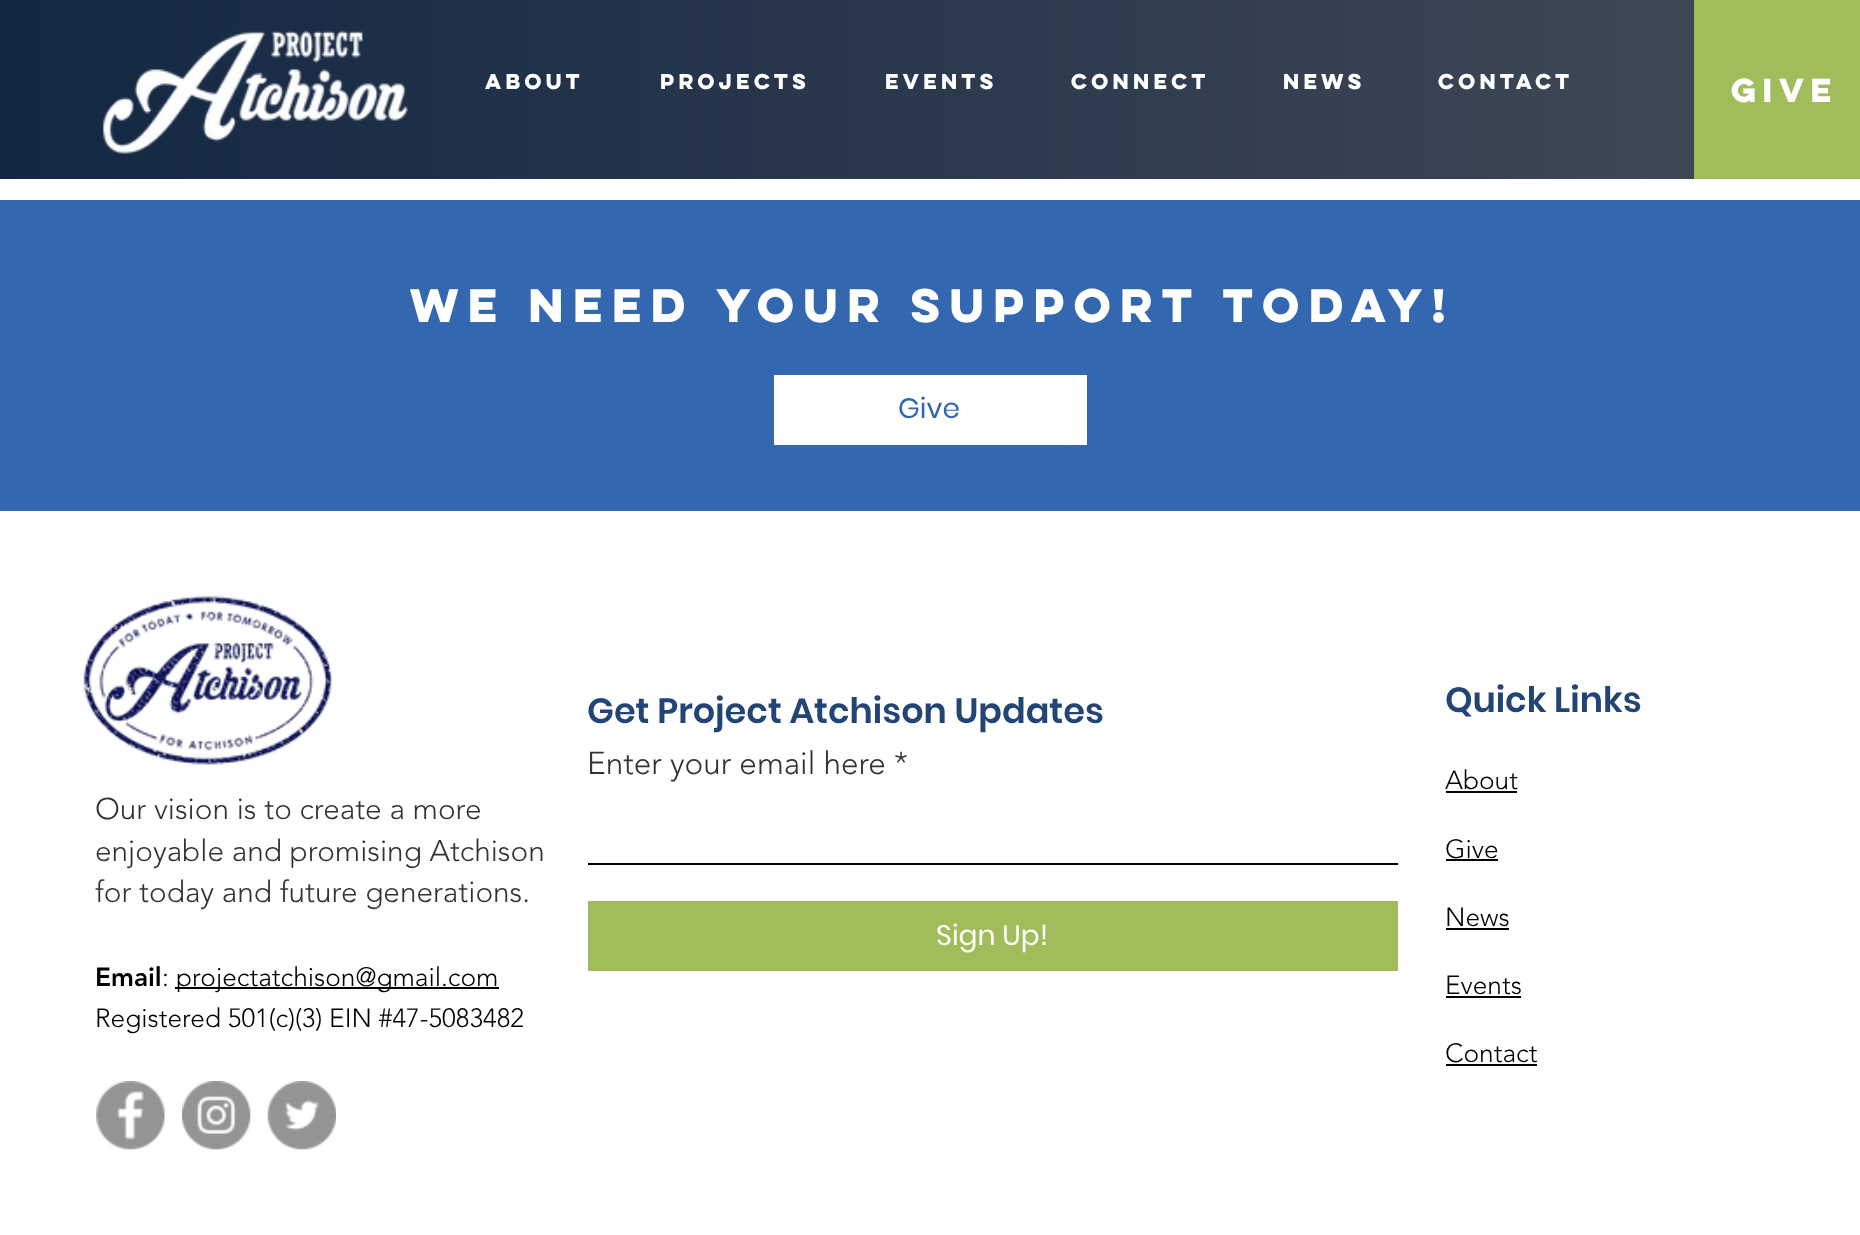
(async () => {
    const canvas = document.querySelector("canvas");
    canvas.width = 1860;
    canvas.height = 1235;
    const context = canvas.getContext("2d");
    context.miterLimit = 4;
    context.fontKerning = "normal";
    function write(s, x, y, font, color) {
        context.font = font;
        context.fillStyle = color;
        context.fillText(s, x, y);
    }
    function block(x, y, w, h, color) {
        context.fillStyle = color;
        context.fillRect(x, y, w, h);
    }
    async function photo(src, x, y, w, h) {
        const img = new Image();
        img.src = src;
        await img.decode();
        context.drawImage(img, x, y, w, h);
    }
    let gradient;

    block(0, 0, 1860, 1235, "rgb(255, 255, 255)");
    gradient = context.createLinearGradient(0, 89, 1860, 89);
    gradient.addColorStop(0, "rgb(51, 103, 176)");
    gradient.addColorStop(1, "rgb(175, 197, 229)");
    context.fillStyle = gradient;
    context.fillRect(0, 0, 1694, 179);
    block(0, 0, 410, 179, "rgba(0, 0, 0, 0.62)");
    await photo("media/1.png", 102, 30, 307, 124);
    block(410, 0, 1284, 179, "rgba(0, 0, 0, 0.62)");
    write("About", 485, 89, "bold 19.25px 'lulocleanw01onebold'", "rgb(255, 255, 255)");
    write("Projects", 660, 89, "bold 19.25px 'lulocleanw01onebold'", "rgb(255, 255, 255)");
    write("Events", 885, 89, "bold 19.25px 'lulocleanw01onebold'", "rgb(255, 255, 255)");
    write("Connect", 1071, 89, "bold 19.25px 'lulocleanw01onebold'", "rgb(255, 255, 255)");
    write("News", 1283, 89, "bold 19.25px 'lulocleanw01onebold'", "rgb(255, 255, 255)");
    write("Contact", 1438, 89, "bold 19.25px 'lulocleanw01onebold'", "rgb(255, 255, 255)");
    block(1694, 0, 166, 179, "rgb(161, 189, 91)");
    write("Give", 1731, 102, "bold 29.75px 'lulocleanw01onebold'", "rgb(255, 255, 255)");
    block(0, 200, 1860, 311, "rgb(51, 103, 176)");
    write("We Need Your Support Today!", 410, 322, "bold 42px 'lulocleanw01onebold'", "rgb(255, 255, 255)");
    block(774, 375, 313, 70, "rgb(255, 255, 255)");
    write("Give", 898, 418, "28px Poppins", "rgb(51, 103, 176)");
    await photo("media/2.png", 83, 595, 250, 170);
    write("Our vision is to create a more", 95, 819, "300 29.75px 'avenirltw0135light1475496'", "rgb(51, 51, 51)");
    write("enjoyable and promising Atchison", 95, 861, "300 29.75px 'avenirltw0135light1475496'", "rgb(51, 51, 51)");
    write("for today and future generations.", 95, 902, "300 29.75px 'avenirltw0135light1475496'", "rgb(51, 51, 51)");
    write("Email", 95, 986, "900 26.25px 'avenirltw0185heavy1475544'", "rgb(0, 0, 0)");
    write(":", 162, 986, "300 26.25px 'avenirltw0135light1475496'", "rgb(0, 0, 0)");
    block(175, 987, 324, 2, "rgb(0, 0, 0)");
    write("projectatchison@gmail.com", 176, 986, "300 26.25px 'avenirltw0135light1475496'", "rgb(0, 0, 0)");
    write("Registered 501(c)(3) EIN #47-5083482", 95, 1027, "300 26.25px 'avenirltw0135light1475496'", "rgb(0, 0, 0)");
    await photo("media/3.png", 96, 1081, 69, 69);
    await photo("media/4.png", 182, 1081, 69, 69);
    await photo("media/5.png", 267, 1081, 69, 69);
    write("Get Project Atchison Updates", 587, 723, "600 35px Poppins", "rgb(34, 69, 117)");
    write("Enter your email here *", 587, 774, "300 31.5px 'avenirltw0135light1475496'", "rgb(51, 51, 51)");
    block(588, 863, 810, 2, "rgb(0, 0, 0)");
    block(588, 901, 810, 70, "rgb(161, 189, 91)");
    write("Sign Up!", 936, 945, "28px Poppins", "rgb(255, 255, 255)");
    write("Quick Links", 1445, 712, "600 35px Poppins", "rgb(34, 69, 117)");
    write("About", 1445, 789, "300 26.25px 'avenirltw0135light1475496'", "rgb(0, 0, 0)");
    block(1446, 791, 71, 2, "rgb(0, 0, 0)");
    write("Give", 1445, 858, "300 26.25px 'avenirltw0135light1475496'", "rgb(0, 0, 0)");
    block(1446, 859, 52, 2, "rgb(0, 0, 0)");
    write("News", 1445, 926, "300 26.25px 'avenirltw0135light1475496'", "rgb(0, 0, 0)");
    block(1446, 928, 63, 2, "rgb(0, 0, 0)");
    write("Events", 1445, 994, "300 26.25px 'avenirltw0135light1475496'", "rgb(0, 0, 0)");
    block(1446, 996, 75, 2, "rgb(0, 0, 0)");
    write("Contact", 1445, 1062, "300 26.25px 'avenirltw0135light1475496'", "rgb(0, 0, 0)");
    block(1446, 1064, 91, 2, "rgb(0, 0, 0)");
})();
